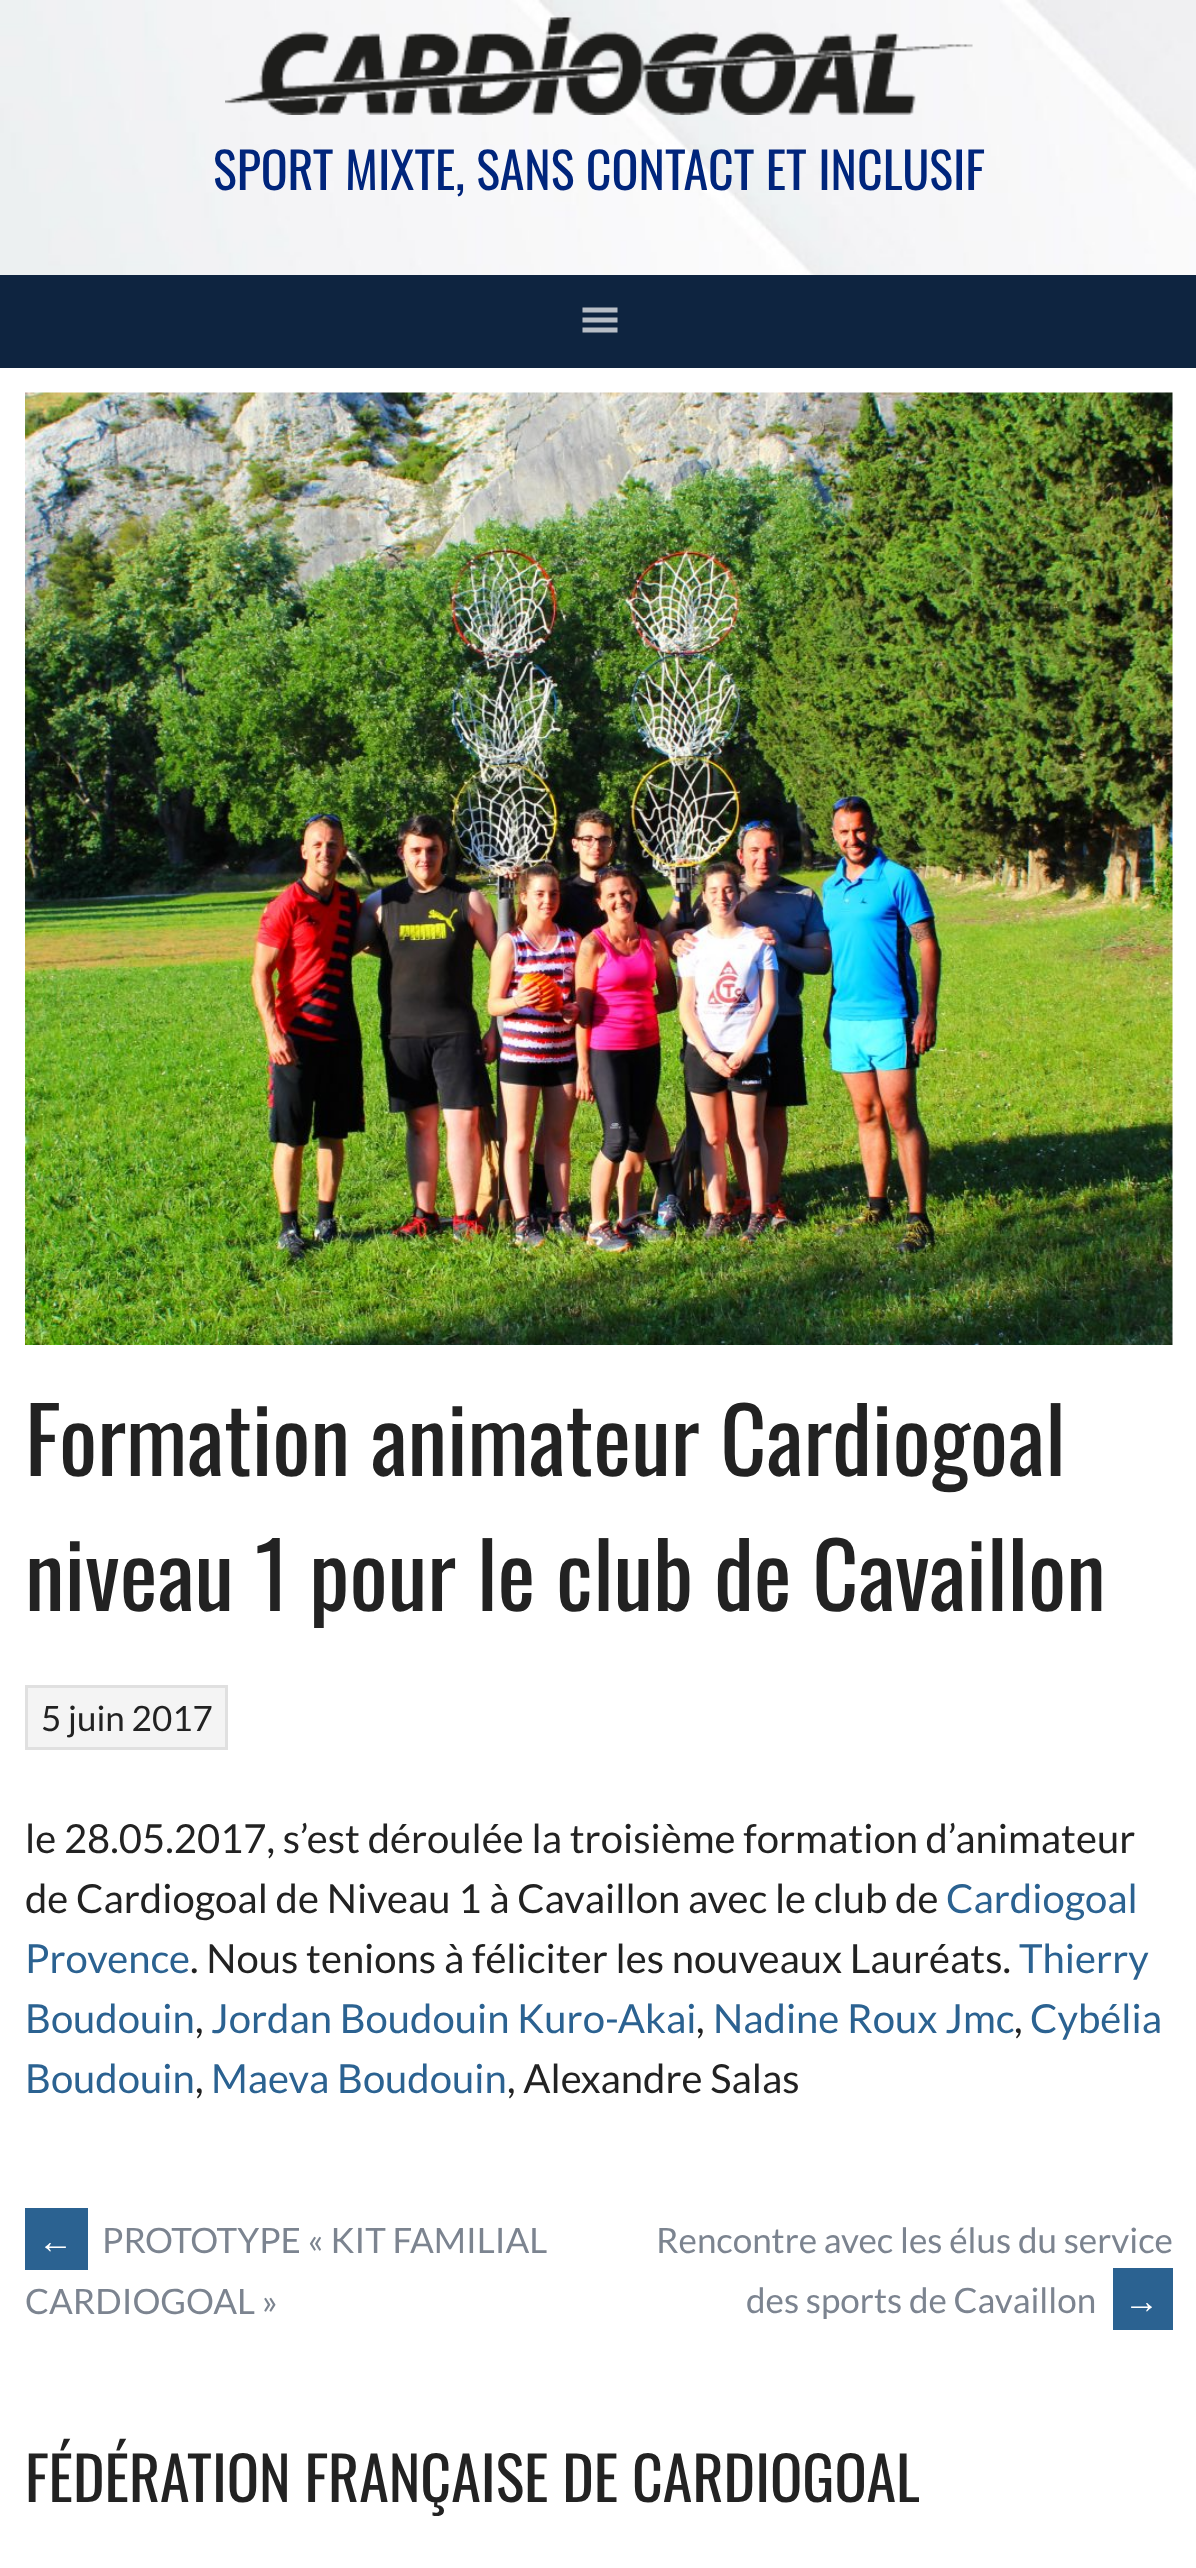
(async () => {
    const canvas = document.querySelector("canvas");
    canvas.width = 1196;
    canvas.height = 2568;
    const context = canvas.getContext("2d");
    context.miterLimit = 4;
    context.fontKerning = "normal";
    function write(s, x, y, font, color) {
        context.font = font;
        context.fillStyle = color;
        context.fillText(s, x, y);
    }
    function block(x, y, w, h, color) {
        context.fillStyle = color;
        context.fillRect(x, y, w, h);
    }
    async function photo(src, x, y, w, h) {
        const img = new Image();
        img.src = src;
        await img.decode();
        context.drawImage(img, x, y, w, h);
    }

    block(0, 0, 1196, 2568, "rgb(255, 255, 255)");
    await photo("media/1.png", 0, 0, 1196, 275);
    await photo("media/2.png", 225, 17, 748, 98);
    write("SPORT MIXTE, SANS CONTACT ET INCLUSIF", 213, 190, "50px Oswald", "rgb(0, 37, 124)");
    block(0, 275, 1196, 93, "rgb(14, 36, 64)");
    context.fillStyle = "rgb(183, 189, 198)";
    context.beginPath();
    context.moveTo(582.5, 332.5);
    context.lineTo(617.5, 332.5);
    context.lineTo(617.5, 327.5);
    context.lineTo(582.5, 327.5);
    context.closePath();
    context.moveTo(582.5, 307.5);
    context.lineTo(582.5, 312.5);
    context.lineTo(617.5, 312.5);
    context.lineTo(617.5, 307.5);
    context.closePath();
    context.moveTo(582.5, 322.5);
    context.lineTo(617.5, 322.5);
    context.lineTo(617.5, 317.5);
    context.lineTo(582.5, 317.5);
    context.closePath();
    context.fill();
    await photo("media/3.png", 25, 392, 1148, 953);
    write("Formation animateur Cardiogoal", 25, 1476, "90px Oswald", "rgb(34, 34, 34)");
    write("niveau 1 pour le club de Cavaillon", 25, 1611, "90px Oswald", "rgb(34, 34, 34)");
    context.fillStyle = "rgb(244, 244, 244)";
    context.beginPath();
    context.rect(26.5, 1686.5, 200, 62);
    context.fill();
    context.strokeStyle = "rgb(224, 224, 224)";
    context.lineWidth = 3;
    context.stroke();
    write("5 juin 2017", 41, 1731, "35px Lato", "rgb(34, 34, 34)");
    write("le 28.05.2017, s’est déroulée la troisième formation d’animateur", 25, 1853, "40px Lato", "rgb(34, 34, 34)");
    write("de Cardiogoal de Niveau 1 à Cavaillon avec le club de", 25, 1913, "40px Lato", "rgb(34, 34, 34)");
    write("Cardiogoal", 946, 1913, "40px Lato", "rgb(43, 98, 145)");
    write("Provence", 25, 1973, "40px Lato", "rgb(43, 98, 145)");
    write(". Nous tenions à féliciter les nouveaux Lauréats.", 190, 1973, "40px Lato", "rgb(34, 34, 34)");
    write("Thierry", 1019, 1973, "40px Lato", "rgb(43, 98, 145)");
    write("Boudouin", 25, 2033, "40px Lato", "rgb(43, 98, 145)");
    write(",", 195, 2033, "40px Lato", "rgb(34, 34, 34)");
    write("Jordan Boudouin Kuro-Akai", 211, 2033, "40px Lato", "rgb(43, 98, 145)");
    write(",", 696, 2033, "40px Lato", "rgb(34, 34, 34)");
    write("Nadine Roux Jmc", 713, 2033, "40px Lato", "rgb(43, 98, 145)");
    write(",", 1014, 2033, "40px Lato", "rgb(34, 34, 34)");
    write("Cybélia", 1030, 2033, "40px Lato", "rgb(43, 98, 145)");
    write("Boudouin", 25, 2093, "40px Lato", "rgb(43, 98, 145)");
    write(",", 195, 2093, "40px Lato", "rgb(34, 34, 34)");
    write("Maeva Boudouin", 211, 2093, "40px Lato", "rgb(43, 98, 145)");
    write(", Alexandre Salas", 507, 2093, "40px Lato", "rgb(34, 34, 34)");
    block(25, 2208, 63, 62, "rgb(43, 98, 145)");
    write("←", 38, 2253, "35px Liberation Sans", "rgb(255, 255, 255)");
    write("PROTOTYPE « KIT FAMILIAL", 102, 2253, "35px Lato", "rgb(124, 132, 144)");
    write("CARDIOGOAL »", 25, 2314, "35px Lato", "rgb(124, 132, 144)");
    write("Rencontre avec les élus du service", 656, 2253, "35px Lato", "rgb(124, 132, 144)");
    write("des sports de Cavaillon", 746, 2313, "35px Lato", "rgb(124, 132, 144)");
    block(1113, 2268, 60, 62, "rgb(43, 98, 145)");
    write("→", 1124, 2313, "35px Liberation Sans", "rgb(255, 255, 255)");
    write("FÉDÉRATION FRANÇAISE DE CARDIOGOAL", 25, 2502, "60px Oswald", "rgb(34, 34, 34)");
})();
